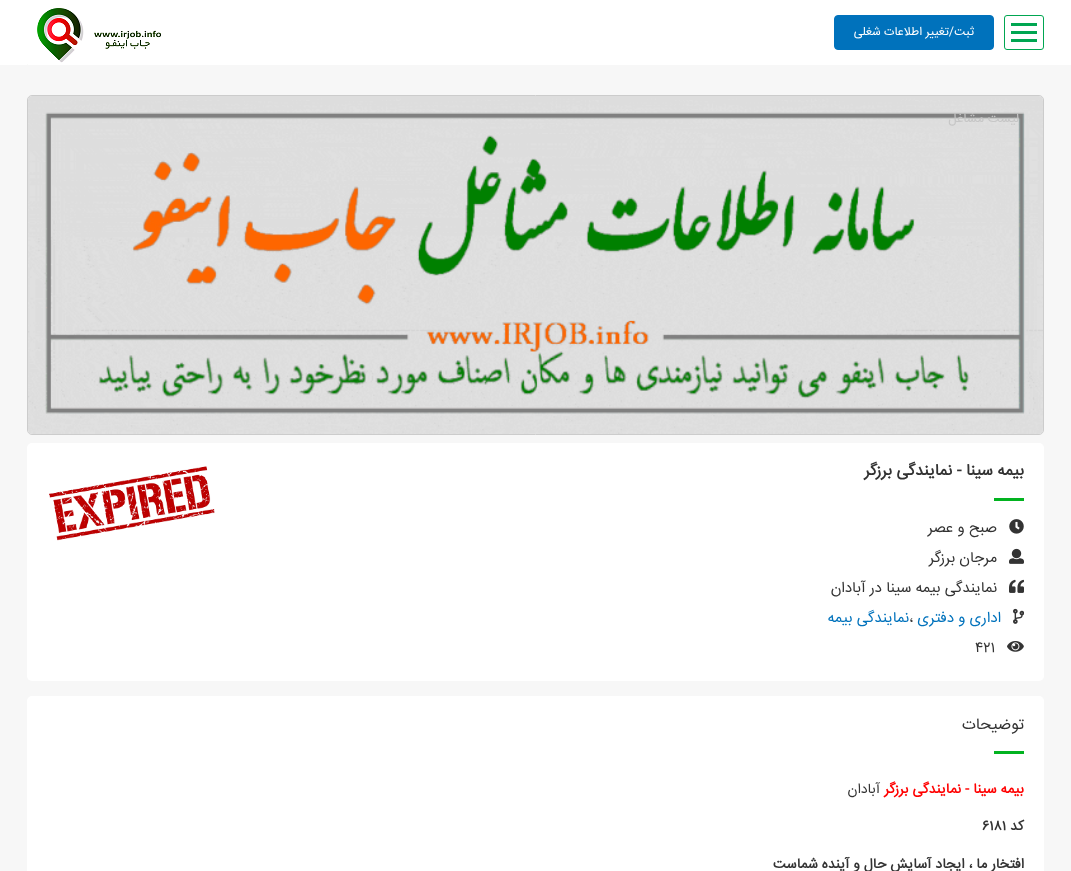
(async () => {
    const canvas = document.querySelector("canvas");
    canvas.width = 1071;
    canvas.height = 871;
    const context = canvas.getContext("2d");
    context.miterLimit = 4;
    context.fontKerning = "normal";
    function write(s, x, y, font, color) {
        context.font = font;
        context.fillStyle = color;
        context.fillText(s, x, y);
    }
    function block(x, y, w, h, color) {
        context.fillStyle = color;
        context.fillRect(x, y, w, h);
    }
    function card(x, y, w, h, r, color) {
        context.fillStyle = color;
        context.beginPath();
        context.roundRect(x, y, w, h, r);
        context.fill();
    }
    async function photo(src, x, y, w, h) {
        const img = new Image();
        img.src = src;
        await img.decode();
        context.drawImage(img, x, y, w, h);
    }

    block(0, 0, 1071, 871, "rgb(255, 255, 255)");
    context.fillStyle = "rgb(0, 114, 188)";
    context.beginPath();
    context.roundRect(834.5, 15.5, 159, 34, 3.5);
    context.fill();
    context.strokeStyle = "rgb(0, 114, 188)";
    context.stroke();
    context.direction = "rtl";
    write("ثبت/تغییر اطلاعات شغلی", 974, 35, "12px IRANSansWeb", "rgb(255, 255, 255)");
    context.beginPath();
    context.roundRect(1004.5, 15.5, 39, 34, 2.5);
    context.strokeStyle = "rgb(0, 166, 81)";
    context.stroke();
    block(1011, 39, 26, 3, "rgb(0, 166, 81)");
    block(1011, 31, 26, 3, "rgb(0, 166, 81)");
    block(1011, 23, 26, 3, "rgb(0, 166, 81)");
    block(0, 65, 1071, 806, "rgb(247, 247, 247)");
    context.beginPath();
    context.roundRect(27.5, 95.5, 1016, 339, 4.5);
    context.strokeStyle = "rgb(204, 204, 204)";
    context.stroke();
    await photo("media/2.png", 28, 96, 1015, 338);
    write("لیست مشاغل", 1019, 122, "13px IRANSansWeb", "rgb(198, 198, 198)");
    await photo("media/1.png", 27, 8, 134, 57);
    card(27, 443, 1017, 238, 5, "rgb(255, 255, 255)");
    write("بیمه سینا - نمایندگی برزگر", 1024, 475, "bold 16px IRANSansWeb", "rgb(51, 51, 51)");
    await photo("media/3.png", 49, 466, 166, 75);
    block(994, 498, 30, 3, "rgb(2, 179, 32)");
    await photo("media/4.png", 1009, 519, 15, 15);
    write("صبح و عصر", 997, 532, "15px IRANSansWeb", "rgb(51, 51, 51)");
    await photo("media/5.png", 1009, 548, 15, 16);
    write("مرجان برزگر", 997, 562, "15px IRANSansWeb", "rgb(51, 51, 51)");
    await photo("media/6.png", 1009, 579, 15, 14);
    write("نمایندگی بیمه سینا در آبادان", 997, 592, "15px IRANSansWeb", "rgb(51, 51, 51)");
    await photo("media/7.png", 1013, 608, 11, 16);
    write("اداری و دفتری", 1001, 622, "15px IRANSansWeb", "rgb(0, 114, 188)");
    context.direction = "ltr";
    write("،", 909, 622, "15px IRANSansWeb", "rgb(51, 51, 51)");
    context.direction = "rtl";
    write("نمایندگی بیمه", 909, 622, "15px IRANSansWeb", "rgb(0, 114, 188)");
    await photo("media/8.png", 1007, 641, 17, 11);
    context.direction = "ltr";
    write("۴۲۱", 975, 652, "15px IRANSansWeb", "rgb(51, 51, 51)");
    card(27, 696, 1017, 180, 5, "rgb(255, 255, 255)");
    context.direction = "rtl";
    write("توضیحات", 1024, 729, "16px IRANSansWeb", "rgb(51, 51, 51)");
    block(994, 751, 30, 3, "rgb(2, 179, 32)");
    write("بیمه سینا - نمایندگی برزگر", 1024, 793, "bold 14px IRANSansWeb", "rgb(255, 0, 0)");
    write("آبادان", 880, 793, "14px IRANSansWeb", "rgb(51, 51, 51)");
    write("کد", 1024, 830, "bold 14px IRANSansWeb", "rgb(51, 51, 51)");
    context.direction = "ltr";
    write("۶۱۸۱", 982, 830, "bold 14px IRANSansWeb", "rgb(51, 51, 51)");
    context.direction = "rtl";
    write("افتخار ما ، ایجاد آسایش حال و آینده شماست", 1024, 868, "bold 14px IRANSansWeb", "rgb(51, 51, 51)");
})();
